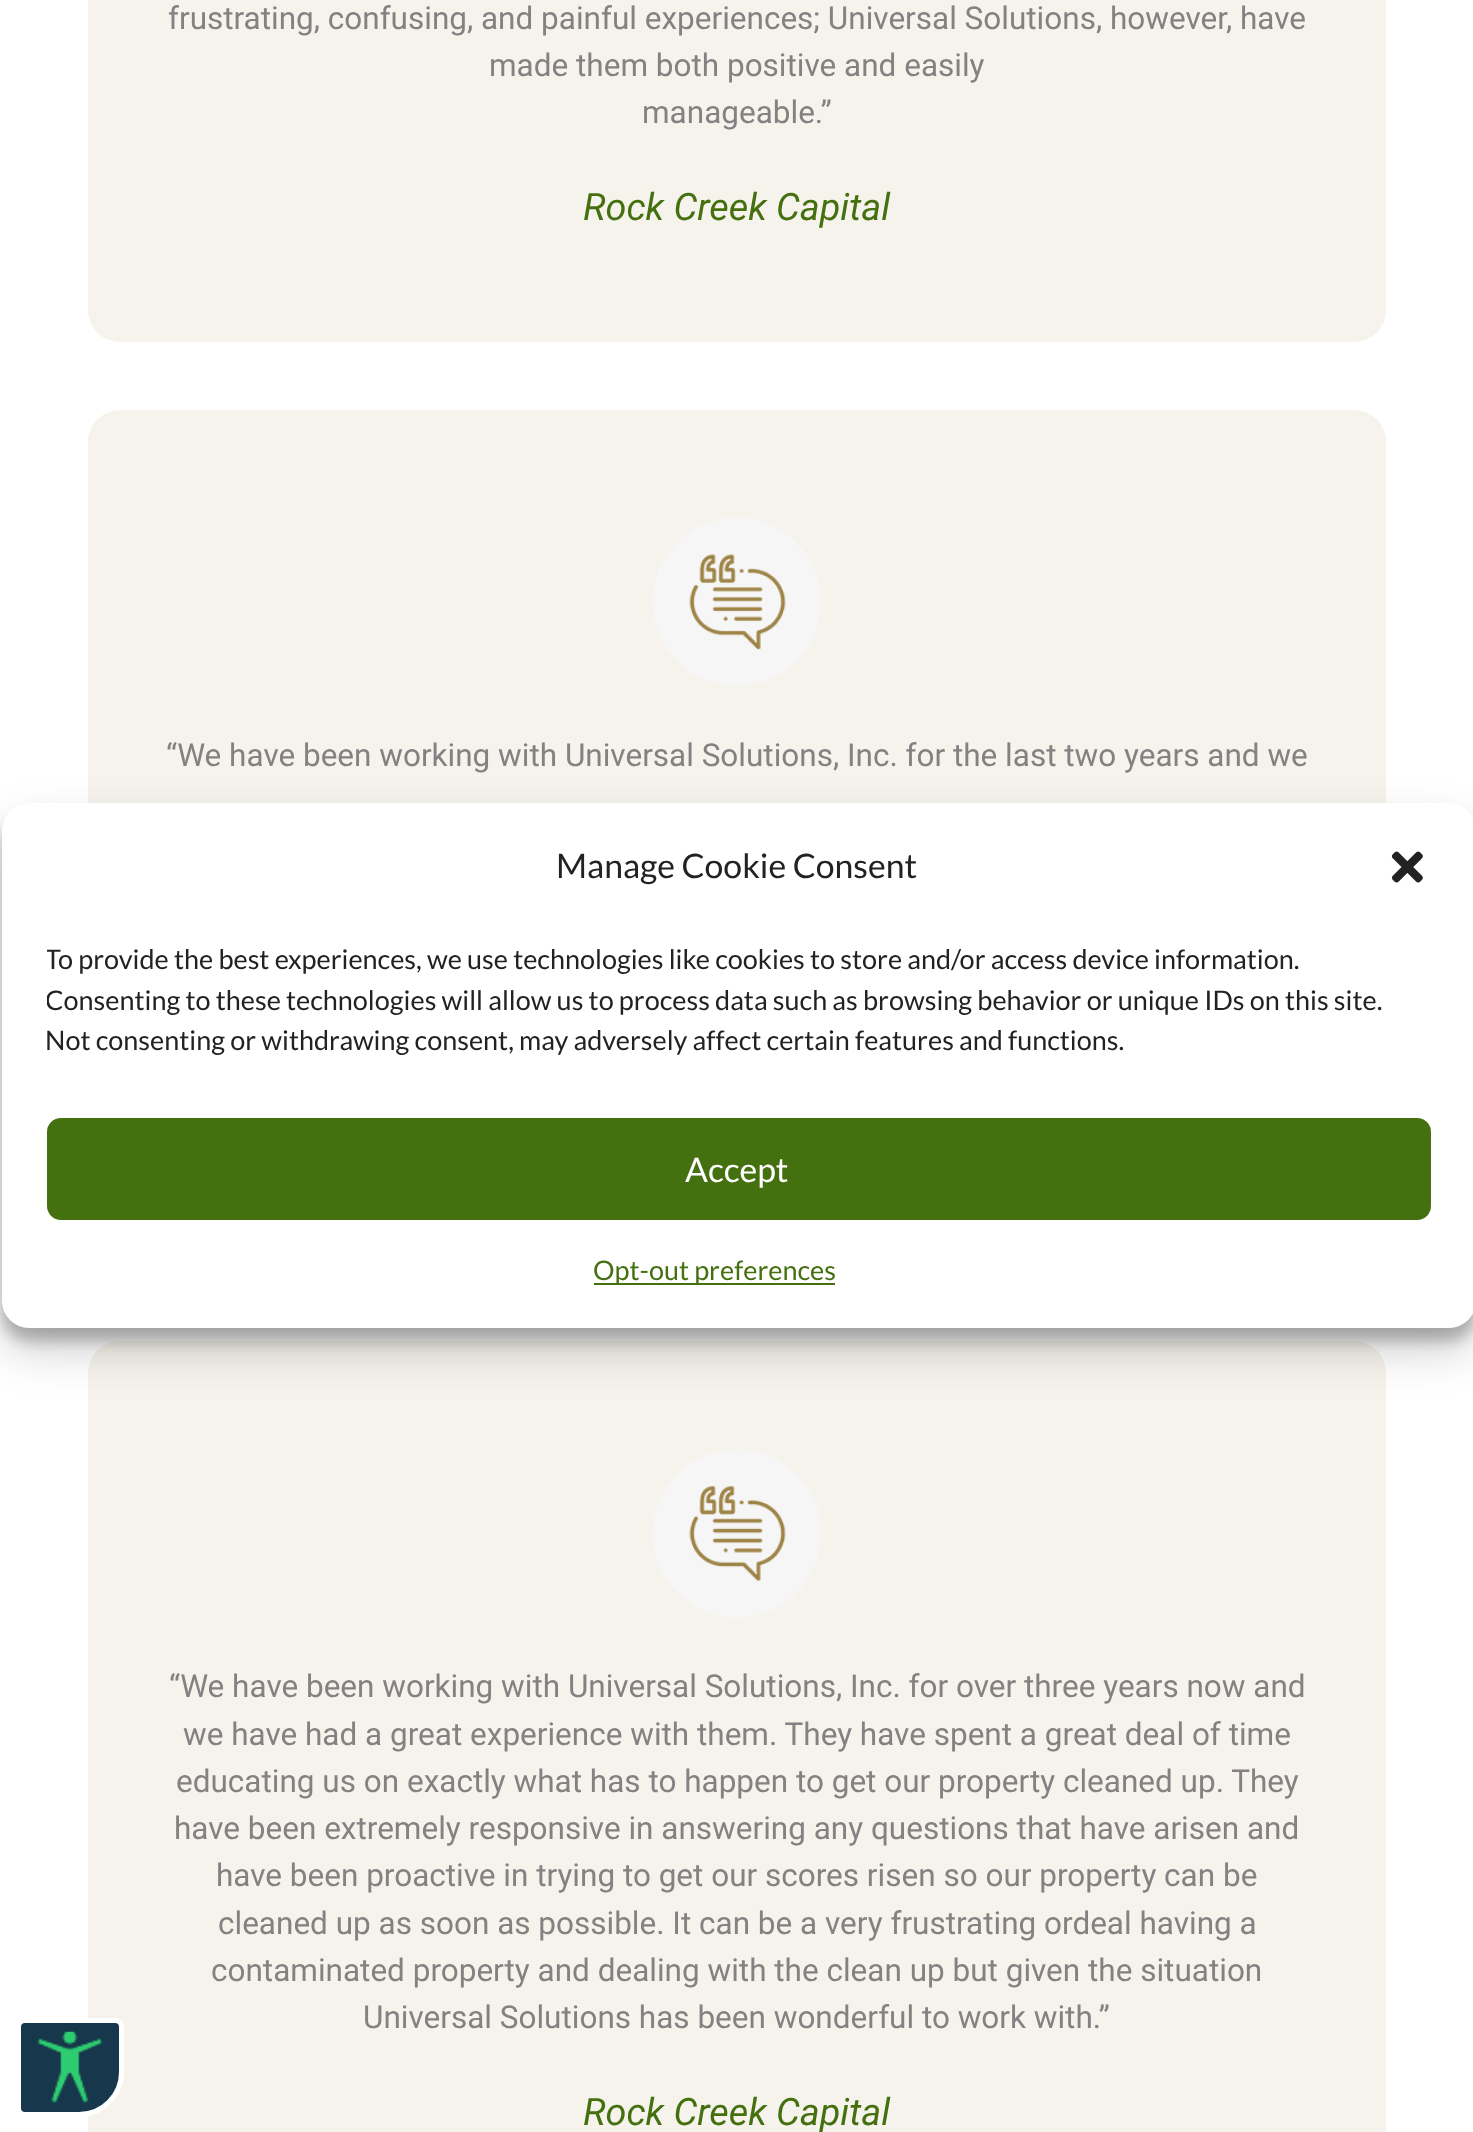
(async () => {
    const canvas = document.querySelector("canvas");
    canvas.width = 1473;
    canvas.height = 2132;
    const context = canvas.getContext("2d");
    context.miterLimit = 4;
    context.fontKerning = "normal";
    function write(s, x, y, font, color) {
        context.font = font;
        context.fillStyle = color;
        context.fillText(s, x, y);
    }
    function block(x, y, w, h, color) {
        context.fillStyle = color;
        context.fillRect(x, y, w, h);
    }
    function card(x, y, w, h, r, color) {
        context.fillStyle = color;
        context.beginPath();
        context.roundRect(x, y, w, h, r);
        context.fill();
    }
    async function photo(src, x, y, w, h) {
        const img = new Image();
        img.src = src;
        await img.decode();
        context.drawImage(img, x, y, w, h);
    }

    block(0, 0, 1473, 2132, "rgb(255, 255, 255)");
    card(88, -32, 1298, 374, 32, "rgb(246, 243, 236)");
    write("frustrating, confusing, and painful experiences; Universal Solutions, however, have", 168, 29, "31.5px Roboto", "rgb(130, 130, 130)");
    write("made them both positive and easily", 489, 76, "31.5px Roboto", "rgb(130, 130, 130)");
    write("manageable.”", 642, 123, "31.5px Roboto", "rgb(130, 130, 130)");
    write("Rock Creek Capital", 583, 220, "italic 37.75px Roboto", "rgb(69, 112, 16)");
    card(88, 410, 1298, 864, 32, "rgb(246, 243, 236)");
    await photo("media/1.png", 652, 517, 169, 169);
    write("“We have been working with Universal Solutions, Inc. for the last two years and we", 166, 766, "31.5px Roboto", "rgb(130, 130, 130)");
    card(88, 1341, 1298, 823, 32, "rgb(246, 243, 236)");
    await photo("media/2.png", 652, 1449, 169, 169);
    write("“We have been working with Universal Solutions, Inc. for over three years now and", 169, 1697, "31.5px Roboto", "rgb(130, 130, 130)");
    write("we have had a great experience with them. They have spent a great deal of time", 183, 1745, "31.5px Roboto", "rgb(130, 130, 130)");
    write("educating us on exactly what has to happen to get our property cleaned up. They", 176, 1792, "31.5px Roboto", "rgb(130, 130, 130)");
    write("have been extremely responsive in answering any questions that have arisen and", 174, 1839, "31.5px Roboto", "rgb(130, 130, 130)");
    write("have been proactive in trying to get our scores risen so our property can be", 216, 1886, "31.5px Roboto", "rgb(130, 130, 130)");
    write("cleaned up as soon as possible. It can be a very frustrating ordeal having a", 218, 1934, "31.5px Roboto", "rgb(130, 130, 130)");
    write("contaminated property and dealing with the clean up but given the situation", 211, 1981, "31.5px Roboto", "rgb(130, 130, 130)");
    write("Universal Solutions has been wonderful to work with.”", 363, 2028, "31.5px Roboto", "rgb(130, 130, 130)");
    write("Rock Creek Capital", 583, 2125, "italic 37.75px Roboto", "rgb(69, 112, 16)");
    context.fillStyle = "rgba(0, 0, 0, 0.23)";
    context.filter = "blur(7px)";
    context.beginPath();
    context.roundRect(2, 817, 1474, 524, 27);
    context.fill();
    context.filter = "none";
    context.fillStyle = "rgba(0, 0, 0, 0.19)";
    context.filter = "blur(22.5px)";
    context.beginPath();
    context.roundRect(2, 826, 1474, 524, 27);
    context.fill();
    context.filter = "none";
    card(2, 803, 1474, 525, 27, "rgb(255, 255, 255)");
    write("Manage Cookie Consent", 556, 878, "33.75px Lato", "rgb(34, 34, 34)");
    await photo("media/3.png", 1391, 851, 32, 32);
    context.save();
    context.beginPath();
    context.rect(47, 941, 1384, 132);
    context.clip();
    write("To provide the best experiences, we use technologies like cookies to store and/or access device information.", 45, 969, "27px Lato", "rgb(34, 34, 34)");
    write("Consenting to these technologies will allow us to process data such as browsing behavior or unique IDs on this site.", 45, 1010, "27px Lato", "rgb(34, 34, 34)");
    context.restore();
    write("Not consenting or withdrawing consent, may adversely affect certain features and functions.", 45, 1050, "27px Lato", "rgb(34, 34, 34)");
    context.fillStyle = "rgb(69, 112, 16)";
    context.beginPath();
    context.roundRect(48, 1119, 1382, 100, 13);
    context.fill();
    context.strokeStyle = "rgb(69, 112, 16)";
    context.lineWidth = 2;
    context.stroke();
    write("Accept", 685, 1182, "33.75px Lato", "rgb(255, 255, 255)");
    block(594, 1283, 241, 2, "rgb(69, 112, 16)");
    write("Opt-out preferences", 593, 1280, "27px Lato", "rgb(69, 112, 16)");
    context.fillStyle = "rgb(23, 56, 76)";
    context.beginPath();
    context.roundRect(18.5, 2020.5, 103, 94, [6.5, 6.5, 42.5, 6.5]);
    context.fill();
    context.strokeStyle = "rgb(255, 255, 255)";
    context.lineWidth = 5;
    context.stroke();
    await photo("media/4.png", 37, 2031, 66, 72);
})();
